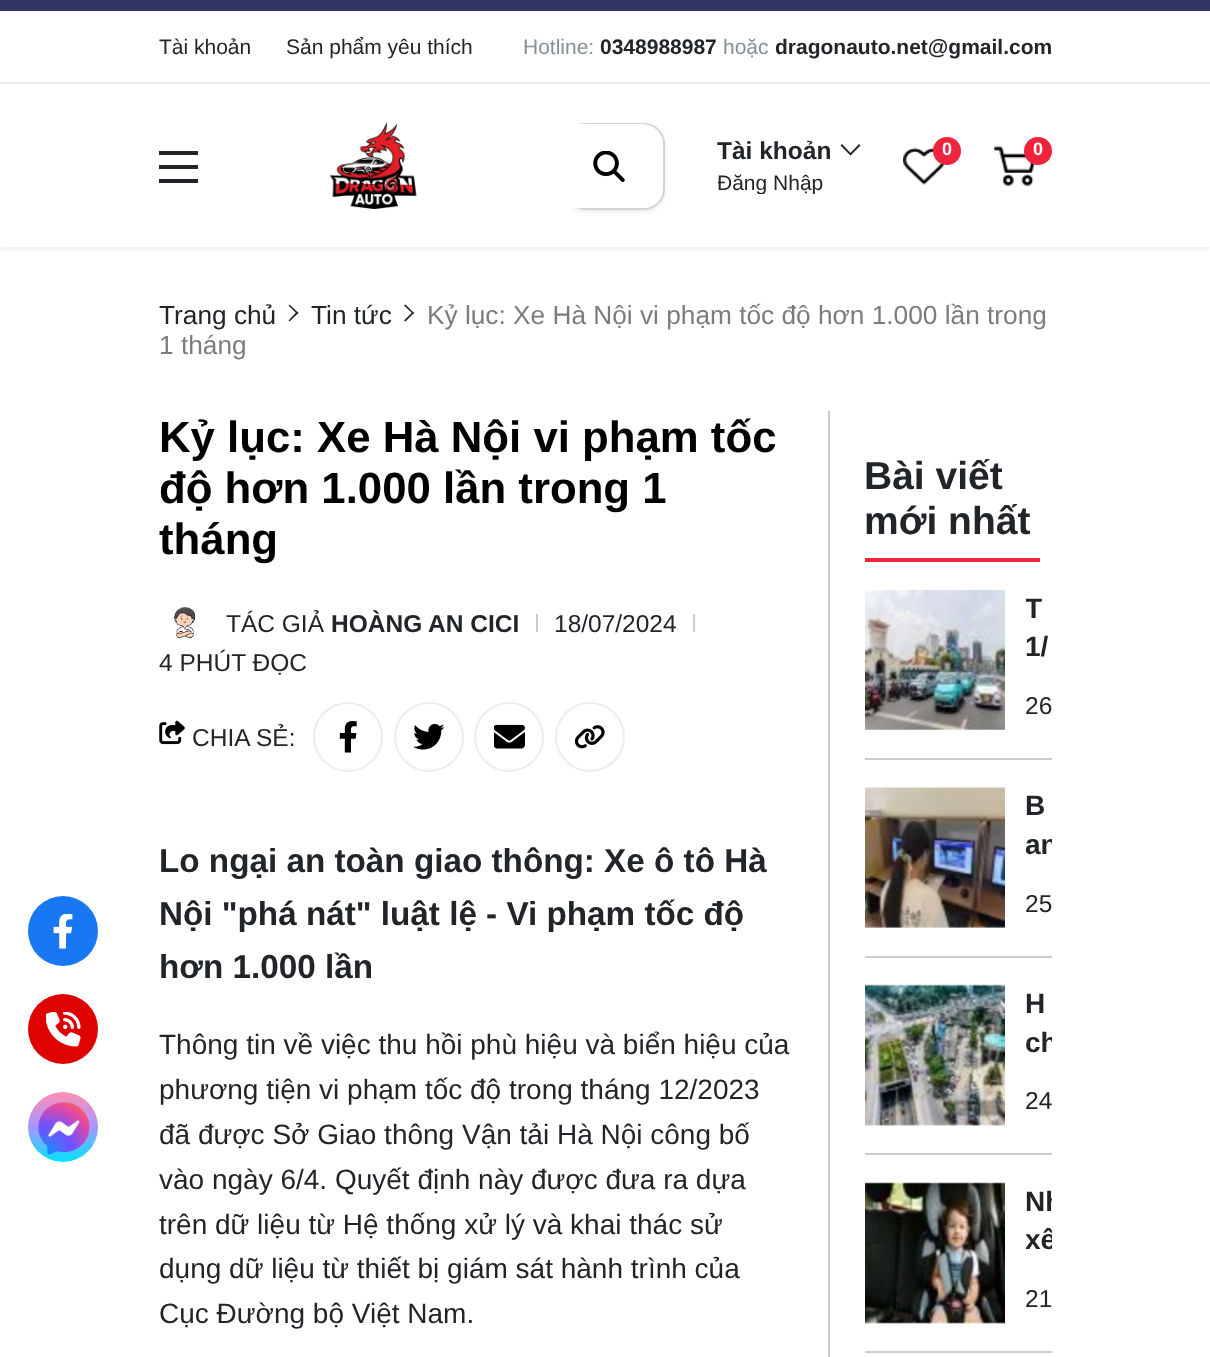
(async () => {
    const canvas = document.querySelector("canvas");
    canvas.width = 1210;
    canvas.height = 1357;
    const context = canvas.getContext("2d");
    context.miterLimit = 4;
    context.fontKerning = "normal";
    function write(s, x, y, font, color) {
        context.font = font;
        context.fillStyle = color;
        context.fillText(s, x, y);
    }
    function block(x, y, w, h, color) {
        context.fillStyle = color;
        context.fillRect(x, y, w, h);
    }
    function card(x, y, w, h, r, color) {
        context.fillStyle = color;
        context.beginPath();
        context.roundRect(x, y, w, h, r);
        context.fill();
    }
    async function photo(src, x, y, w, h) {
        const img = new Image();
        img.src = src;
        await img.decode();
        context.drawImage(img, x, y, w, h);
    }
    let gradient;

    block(0, 0, 1210, 1357, "rgb(255, 255, 255)");
    context.fillStyle = "rgb(24, 119, 242)";
    context.beginPath();
    context.arc(63, 931, 35, 0, Math.PI * 2);
    context.fill();
    await photo("media/1.png", 53, 914, 20, 35);
    context.fillStyle = "rgb(222, 2, 0)";
    context.beginPath();
    context.arc(63, 1029, 35, 0, Math.PI * 2);
    context.fill();
    await photo("media/2.png", 46, 1012, 35, 35);
    gradient = context.createLinearGradient(63, 1092, 63, 1162);
    gradient.addColorStop(0, "rgb(255, 143, 178)");
    gradient.addColorStop(0.5, "rgb(167, 151, 255)");
    gradient.addColorStop(1, "rgb(0, 229, 255)");
    context.fillStyle = gradient;
    context.beginPath();
    context.arc(63, 1127, 35, 0, Math.PI * 2);
    context.fill();
    await photo("media/3.png", 38, 1102, 52, 53);
    context.save();
    context.beginPath();
    context.rect(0, 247, 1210, 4);
    context.clip();
    context.fillStyle = "rgba(33, 37, 41, 0.07)";
    context.filter = "blur(2.5px)";
    context.beginPath();
    context.rect(0, 4, 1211, 246);
    context.fill();
    context.filter = "none";
    context.restore();
    block(0, 0, 1210, 11, "rgb(51, 51, 102)");
    block(0, 82, 1210, 2, "rgb(233, 236, 239)");
    write("Tài khoản", 159, 54, "21px Liberation Sans", "rgb(33, 37, 41)");
    write("Sản phẩm yêu thích", 286, 54, "21px Liberation Sans", "rgb(33, 37, 41)");
    write("Hotline:", 523, 54, "21px Liberation Sans", "rgb(134, 142, 150)");
    write("0348988987", 600, 54, "bold 21px Liberation Sans", "rgb(33, 37, 41)");
    write("hoặc", 723, 54, "21px Liberation Sans", "rgb(134, 142, 150)");
    write("dragonauto.net@gmail.com", 775, 54, "bold 21px Liberation Sans", "rgb(33, 37, 41)");
    block(159, 151, 39, 4, "rgb(33, 37, 41)");
    block(159, 165, 39, 4, "rgb(33, 37, 41)");
    block(159, 179, 39, 4, "rgb(33, 37, 41)");
    await photo("media/4.png", 329, 122, 88, 87);
    context.fillStyle = "rgba(33, 37, 41, 0.09)";
    context.filter = "blur(2px)";
    context.beginPath();
    context.roundRect(565, 124, 100, 88, 21);
    context.fill();
    context.filter = "none";
    context.fillStyle = "rgb(255, 255, 255)";
    context.beginPath();
    context.roundRect(566, 124, 98, 85, 20);
    context.fill();
    context.strokeStyle = "rgb(206, 212, 218)";
    context.lineWidth = 2;
    context.stroke();
    card(555, 124, 108, 84, 21, "rgb(255, 255, 255)");
    await photo("media/5.png", 593, 151, 32, 31);
    write("Tài khoản", 717, 159, "bold 24.5px Liberation Sans", "rgb(33, 37, 41)");
    context.save();
    context.beginPath();
    context.rect(718, 173, 113, 21);
    context.clip();
    write("Đăng Nhập", 717, 190, "21px Liberation Sans", "rgb(33, 37, 41)");
    context.restore();
    context.beginPath();
    context.moveTo(859, 144);
    context.lineTo(860.5, 145.5);
    context.lineTo(850.5, 155.5);
    context.lineTo(849.5, 154);
    context.closePath();
    context.fill();
    context.beginPath();
    context.moveTo(842, 144);
    context.lineTo(851.5, 154);
    context.lineTo(850.5, 155.5);
    context.lineTo(840.5, 145.5);
    context.closePath();
    context.fill();
    await photo("media/6.png", 903, 147, 42, 38);
    context.fillStyle = "rgb(239, 35, 60)";
    context.beginPath();
    context.arc(947, 151, 14, 0, Math.PI * 2);
    context.fill();
    write("0", 942, 155, "bold 18px Liberation Sans", "rgb(255, 255, 255)");
    await photo("media/7.png", 994, 146, 41, 41);
    context.fillStyle = "rgb(239, 35, 60)";
    context.beginPath();
    context.arc(1038, 151, 14, 0, Math.PI * 2);
    context.fill();
    write("0", 1033, 155, "bold 18px Liberation Sans", "rgb(255, 255, 255)");
    context.fillStyle = "rgb(33, 37, 41)";
    context.beginPath();
    context.moveTo(404, 305.5);
    context.lineTo(405.5, 304.5);
    context.lineTo(414, 313);
    context.lineTo(413, 314);
    context.closePath();
    context.fill();
    context.beginPath();
    context.moveTo(404, 320.5);
    context.lineTo(413, 311.5);
    context.lineTo(414, 313);
    context.lineTo(405.5, 321.5);
    context.closePath();
    context.fill();
    write("Kỷ lục: Xe Hà Nội vi phạm tốc độ hơn 1.000 lần trong", 427, 324, "26.25px Liberation Sans", "rgb(122, 124, 127)");
    write("1 tháng", 159, 354, "26.25px Liberation Sans", "rgb(122, 124, 127)");
    write("Trang chủ", 159, 324, "26.25px Liberation Sans", "rgb(33, 37, 41)");
    context.beginPath();
    context.moveTo(288.5, 305.5);
    context.lineTo(289.5, 304.5);
    context.lineTo(298.5, 313);
    context.lineTo(297, 314);
    context.closePath();
    context.fill();
    context.beginPath();
    context.moveTo(288.5, 320.5);
    context.lineTo(297, 311.5);
    context.lineTo(298.5, 313);
    context.lineTo(289.5, 321.5);
    context.closePath();
    context.fill();
    write("Tin tức", 311, 324, "26.25px Liberation Sans", "rgb(33, 37, 41)");
    block(828, 411, 2, 946, "rgb(204, 204, 204)");
    write("Kỷ lục: Xe Hà Nội vi phạm tốc", 159, 452, "bold 43.75px Liberation Sans", "rgb(0, 0, 0)");
    write("độ hơn 1.000 lần trong 1", 159, 503, "bold 43.75px Liberation Sans", "rgb(0, 0, 0)");
    write("tháng", 159, 554, "bold 43.75px Liberation Sans", "rgb(0, 0, 0)");
    await photo("media/8.png", 174, 607, 22, 32);
    write("TÁC GIẢ", 226, 632, "24.5px Liberation Sans", "rgb(33, 37, 41)");
    write("HOÀNG AN CICI", 331, 632, "bold 24.5px Liberation Sans", "rgb(33, 37, 41)");
    block(536, 614, 2, 18, "rgb(204, 204, 204)");
    write("18/07/2024", 554, 632, "24.5px Liberation Sans", "rgb(33, 37, 41)");
    block(693, 614, 2, 18, "rgb(204, 204, 204)");
    write("4 PHÚT ĐỌC", 159, 671, "24.5px Liberation Sans", "rgb(33, 37, 41)");
    await photo("media/9.png", 159, 720, 26, 25);
    write("CHIA SẺ:", 192, 746, "24.5px Liberation Sans", "rgb(33, 37, 41)");
    context.beginPath();
    context.arc(348, 737, 34, 0, Math.PI * 2);
    context.strokeStyle = "rgb(242, 236, 233)";
    context.stroke();
    await photo("media/10.png", 339, 721, 18, 32);
    context.beginPath();
    context.arc(429, 737, 34, 0, Math.PI * 2);
    context.stroke();
    await photo("media/11.png", 413, 724, 32, 26);
    context.beginPath();
    context.arc(509, 737, 34, 0, Math.PI * 2);
    context.stroke();
    await photo("media/12.png", 494, 724, 31, 25);
    context.beginPath();
    context.arc(590, 737, 34, 0, Math.PI * 2);
    context.stroke();
    await photo("media/13.png", 574, 725, 31, 24);
    write("Lo ngại an toàn giao thông: Xe ô tô Hà", 159, 872, "bold 33.25px Liberation Sans", "rgb(33, 37, 41)");
    write("Nội \"phá nát\" luật lệ - Vi phạm tốc độ", 159, 925, "bold 33.25px Liberation Sans", "rgb(33, 37, 41)");
    write("hơn 1.000 lần", 159, 978, "bold 33.25px Liberation Sans", "rgb(33, 37, 41)");
    write("Thông tin về việc thu hồi phù hiệu và biển hiệu của", 159, 1054, "28px Liberation Sans", "rgb(33, 37, 41)");
    write("phương tiện vi phạm tốc độ trong tháng 12/2023", 159, 1099, "28px Liberation Sans", "rgb(33, 37, 41)");
    write("đã được Sở Giao thông Vận tải Hà Nội công bố", 159, 1144, "28px Liberation Sans", "rgb(33, 37, 41)");
    write("vào ngày 6/4. Quyết định này được đưa ra dựa", 159, 1189, "28px Liberation Sans", "rgb(33, 37, 41)");
    write("trên dữ liệu từ Hệ thống xử lý và khai thác sử", 159, 1234, "28px Liberation Sans", "rgb(33, 37, 41)");
    write("dụng dữ liệu từ thiết bị giám sát hành trình của", 159, 1278, "28px Liberation Sans", "rgb(33, 37, 41)");
    write("Cục Đường bộ Việt Nam.", 159, 1323, "28px Liberation Sans", "rgb(33, 37, 41)");
    write("Bài viết", 864, 489, "bold 39px Liberation Sans", "rgb(33, 37, 41)");
    write("mới nhất", 864, 534, "bold 39px Liberation Sans", "rgb(33, 37, 41)");
    block(865, 558, 175, 4, "rgb(239, 35, 60)");
    block(865, 758, 187, 2, "rgb(204, 204, 204)");
    await photo("media/14.png", 865, 590, 140, 140);
    context.save();
    context.beginPath();
    context.rect(1026, 590, 26, 77);
    context.clip();
    write("T", 1025, 618, "bold 28px Liberation Sans", "rgb(33, 37, 41)");
    context.restore();
    write("1/", 1025, 656, "bold 28px Liberation Sans", "rgb(33, 37, 41)");
    write("26", 1025, 714, "24.5px Liberation Sans", "rgb(33, 37, 41)");
    block(865, 956, 187, 2, "rgb(204, 204, 204)");
    await photo("media/15.png", 865, 786, 140, 142);
    write("B", 1025, 815, "bold 28px Liberation Sans", "rgb(33, 37, 41)");
    context.save();
    context.beginPath();
    context.rect(1026, 788, 26, 77);
    context.clip();
    write("an", 1025, 854, "bold 28px Liberation Sans", "rgb(33, 37, 41)");
    context.restore();
    write("25", 1025, 912, "24.5px Liberation Sans", "rgb(33, 37, 41)");
    block(865, 1153, 187, 2, "rgb(204, 204, 204)");
    await photo("media/16.png", 865, 984, 140, 142);
    write("H", 1025, 1013, "bold 28px Liberation Sans", "rgb(33, 37, 41)");
    context.save();
    context.beginPath();
    context.rect(1026, 985, 26, 77);
    context.clip();
    write("ch", 1025, 1052, "bold 28px Liberation Sans", "rgb(33, 37, 41)");
    context.restore();
    write("24", 1025, 1109, "24.5px Liberation Sans", "rgb(33, 37, 41)");
    block(865, 1351, 187, 2, "rgb(204, 204, 204)");
    await photo("media/17.png", 865, 1182, 140, 142);
    context.save();
    context.beginPath();
    context.rect(1026, 1183, 26, 77);
    context.clip();
    write("Nh", 1025, 1211, "bold 28px Liberation Sans", "rgb(33, 37, 41)");
    write("xế", 1025, 1249, "bold 28px Liberation Sans", "rgb(33, 37, 41)");
    context.restore();
    write("21", 1025, 1307, "24.5px Liberation Sans", "rgb(33, 37, 41)");
})();
